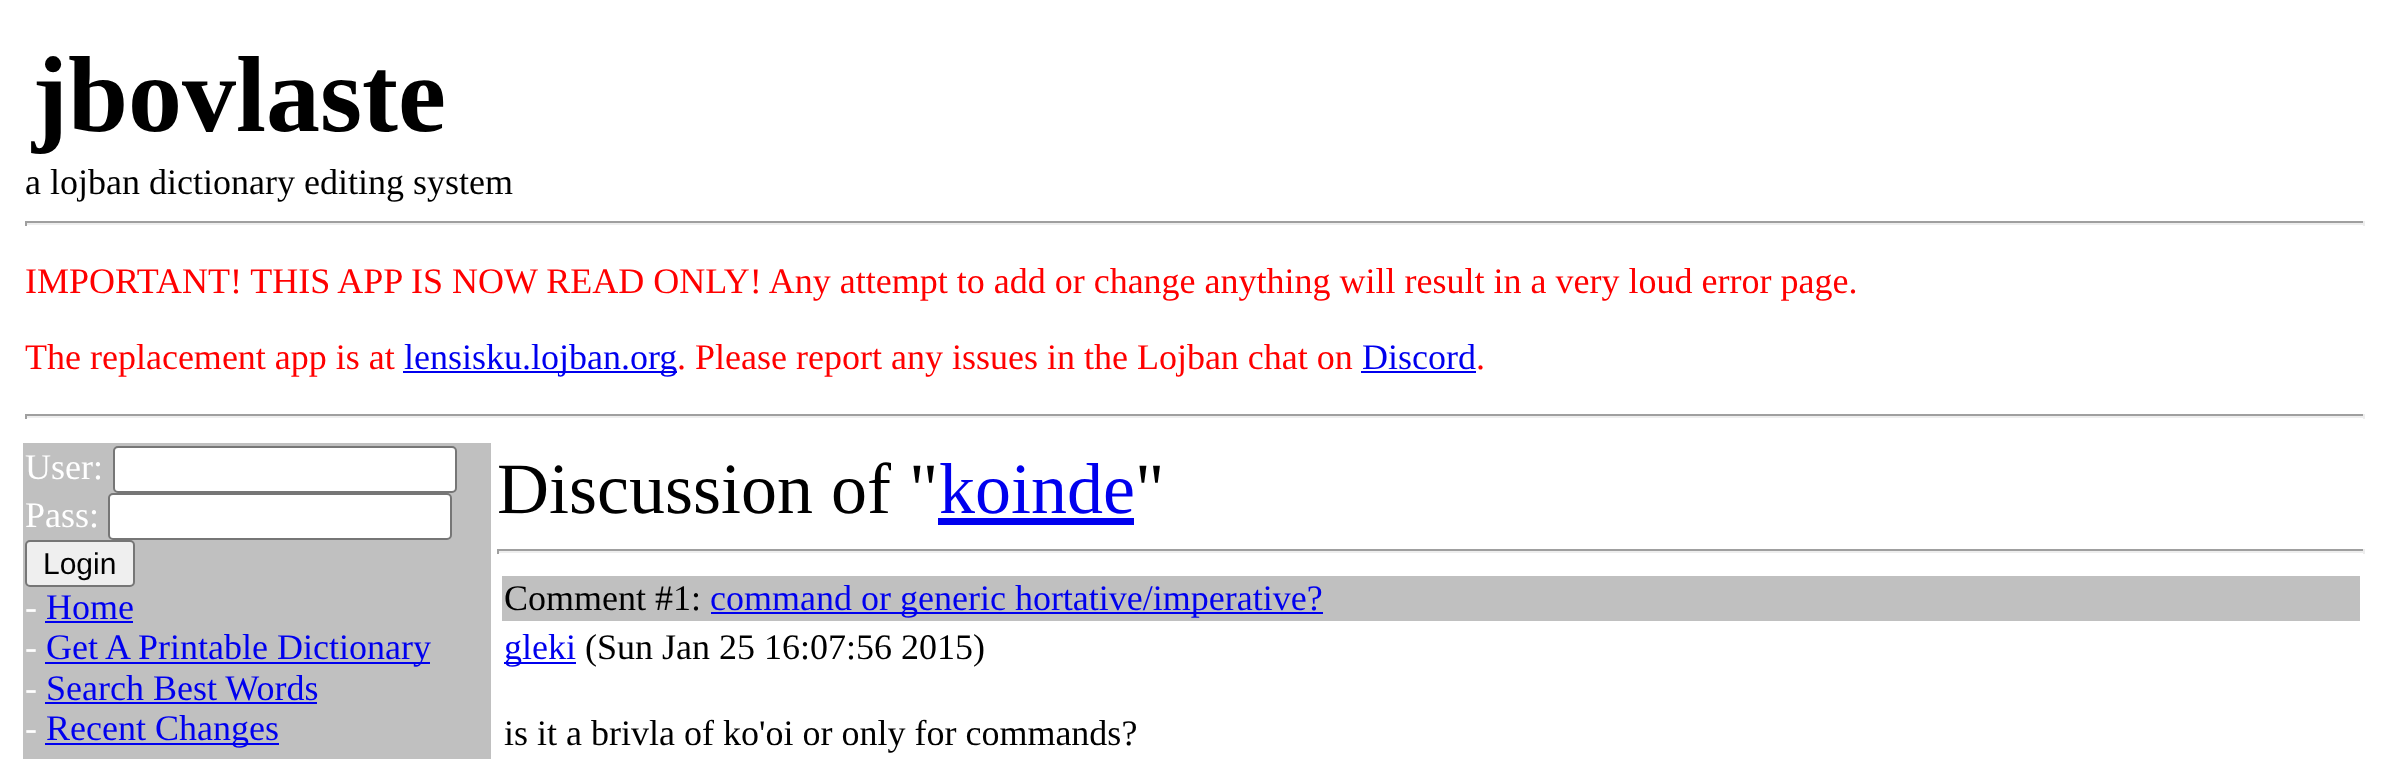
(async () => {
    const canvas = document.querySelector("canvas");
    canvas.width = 2388;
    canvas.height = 759;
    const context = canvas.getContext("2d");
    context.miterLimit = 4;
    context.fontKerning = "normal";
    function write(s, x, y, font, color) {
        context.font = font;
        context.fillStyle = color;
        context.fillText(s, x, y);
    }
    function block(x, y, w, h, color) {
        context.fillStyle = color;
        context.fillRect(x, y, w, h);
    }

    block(0, 0, 2388, 759, "rgb(255, 255, 255)");
    write("jbovlaste", 32, 131, "bold 108px Liberation Serif", "rgb(0, 0, 0)");
    write("a lojban dictionary editing system", 25, 194, "36px Liberation Serif", "rgb(0, 0, 0)");
    block(25, 221, 2340, 2, "rgb(159, 159, 159)");
    block(2363, 221, 2, 5, "rgb(238, 238, 238)");
    block(25, 223, 2340, 2, "rgb(238, 238, 238)");
    block(25, 221, 2, 5, "rgb(159, 159, 159)");
    write("IMPORTANT! THIS APP IS NOW READ ONLY! Any attempt to add or change anything will result in a very loud error page.", 25, 293, "36px Liberation Serif", "rgb(255, 0, 0)");
    write("The replacement app is at", 25, 369, "36px Liberation Serif", "rgb(255, 0, 0)");
    block(403, 371, 274, 2, "rgb(0, 0, 238)");
    write("lensisku.lojban.org", 404, 369, "36px Liberation Serif", "rgb(0, 0, 238)");
    write(". Please report any issues in the Lojban chat on", 677, 369, "36px Liberation Serif", "rgb(255, 0, 0)");
    write("Discord", 1362, 369, "36px Liberation Serif", "rgb(0, 0, 238)");
    block(1361, 371, 115, 2, "rgb(0, 0, 238)");
    write(".", 1476, 369, "36px Liberation Serif", "rgb(255, 0, 0)");
    block(25, 414, 2340, 2, "rgb(159, 159, 159)");
    block(2363, 414, 2, 5, "rgb(238, 238, 238)");
    block(25, 416, 2340, 2, "rgb(238, 238, 238)");
    block(25, 414, 2, 5, "rgb(159, 159, 159)");
    block(23, 443, 468, 316, "rgb(192, 192, 192)");
    write("User:", 25, 479, "36px Liberation Serif", "rgb(255, 255, 255)");
    context.beginPath();
    context.roundRect(114, 447, 342, 45, 4);
    context.fill();
    context.strokeStyle = "rgb(118, 118, 118)";
    context.lineWidth = 2;
    context.stroke();
    write("Pass:", 25, 527, "36px Liberation Serif", "rgb(255, 255, 255)");
    context.beginPath();
    context.roundRect(109, 494, 342, 45, 4);
    context.fill();
    context.stroke();
    context.fillStyle = "rgb(239, 239, 239)";
    context.beginPath();
    context.roundRect(26, 541, 108, 45, 4);
    context.fill();
    context.stroke();
    write("Login", 43, 574, "30px Liberation Sans", "rgb(0, 0, 0)");
    write("-", 25, 619, "36px Liberation Serif", "rgb(255, 255, 255)");
    write("Home", 46, 619, "36px Liberation Serif", "rgb(0, 0, 238)");
    block(45, 621, 88, 2, "rgb(0, 0, 238)");
    write("-", 25, 659, "36px Liberation Serif", "rgb(255, 255, 255)");
    block(45, 662, 385, 2, "rgb(0, 0, 238)");
    write("Get A Printable Dictionary", 46, 659, "36px Liberation Serif", "rgb(0, 0, 238)");
    write("-", 25, 700, "36px Liberation Serif", "rgb(255, 255, 255)");
    write("Search Best Words", 46, 700, "36px Liberation Serif", "rgb(0, 0, 238)");
    block(45, 702, 272, 2, "rgb(0, 0, 238)");
    write("-", 25, 740, "36px Liberation Serif", "rgb(255, 255, 255)");
    block(45, 743, 234, 2, "rgb(0, 0, 238)");
    write("Recent Changes", 46, 740, "36px Liberation Serif", "rgb(0, 0, 238)");
    write("Discussion of \"", 497, 513, "72px Liberation Serif", "rgb(0, 0, 0)");
    write("koinde", 939, 513, "72px Liberation Serif", "rgb(0, 0, 238)");
    block(938, 518, 196, 7, "rgb(0, 0, 238)");
    write("\"", 1135, 513, "72px Liberation Serif", "rgb(0, 0, 0)");
    block(497, 549, 1868, 2, "rgb(159, 159, 159)");
    block(2363, 549, 2, 5, "rgb(238, 238, 238)");
    block(497, 551, 1868, 2, "rgb(238, 238, 238)");
    block(497, 549, 2, 5, "rgb(159, 159, 159)");
    block(502, 576, 1858, 45, "rgb(192, 192, 192)");
    write("Comment #1:", 504, 610, "36px Liberation Serif", "rgb(0, 0, 0)");
    block(711, 612, 612, 2, "rgb(0, 0, 238)");
    write("command or generic hortative/imperative?", 710, 610, "36px Liberation Serif", "rgb(0, 0, 238)");
    block(504, 662, 72, 2, "rgb(0, 0, 238)");
    write("gleki", 504, 659, "36px Liberation Serif", "rgb(0, 0, 238)");
    write("(Sun Jan 25 16:07:56 2015)", 585, 659, "36px Liberation Serif", "rgb(0, 0, 0)");
    write("is it a brivla of ko'oi or only for commands?", 504, 745, "36px Liberation Serif", "rgb(0, 0, 0)");
})();
